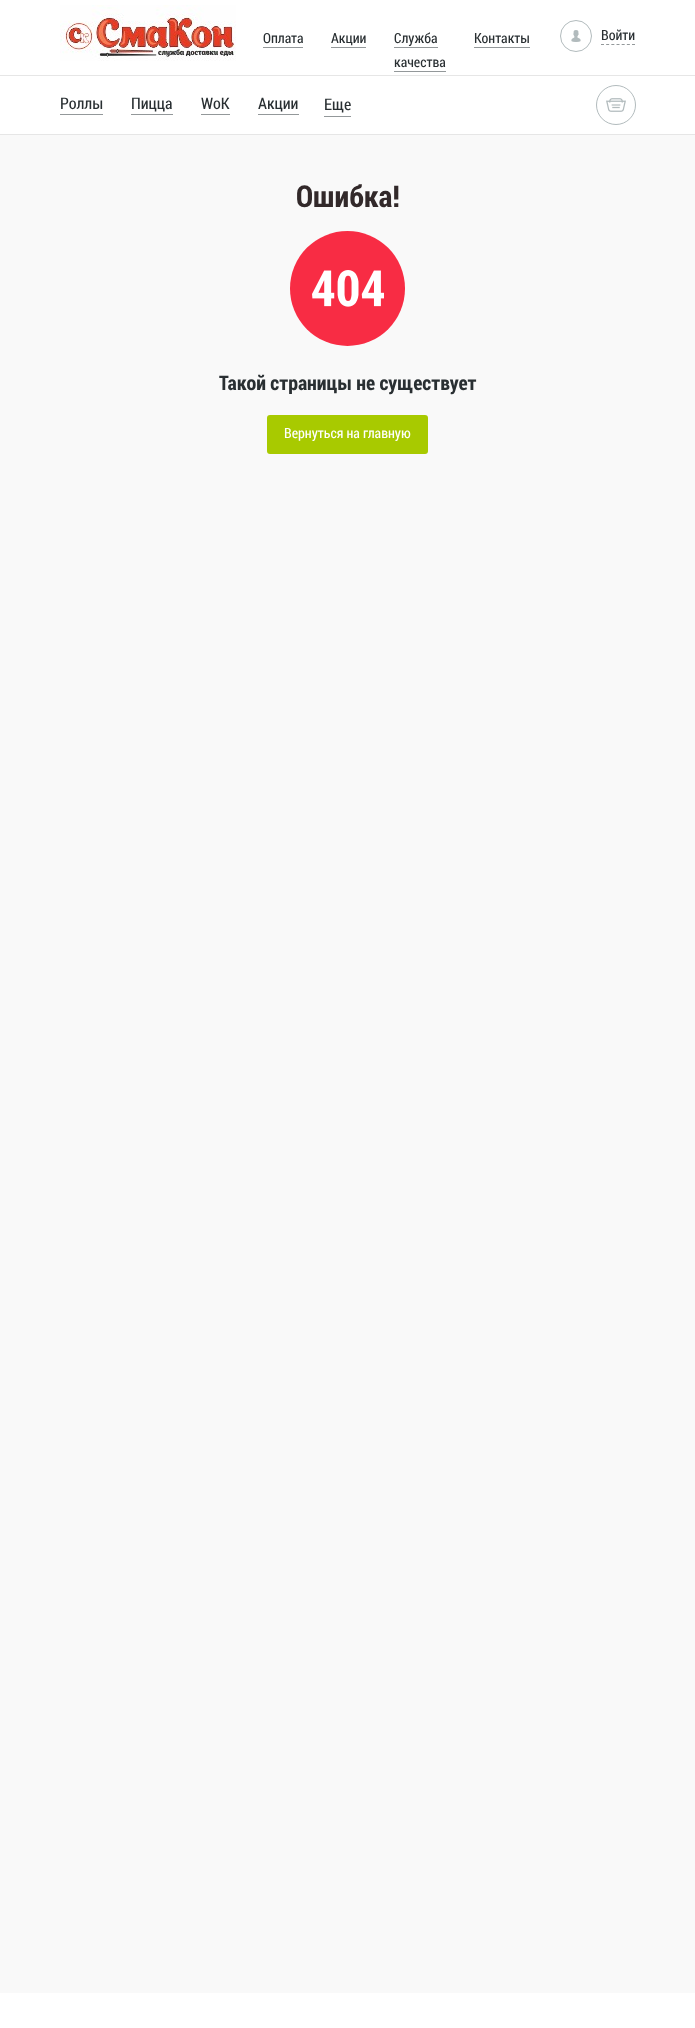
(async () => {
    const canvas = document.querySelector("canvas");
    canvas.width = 695;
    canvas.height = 2028;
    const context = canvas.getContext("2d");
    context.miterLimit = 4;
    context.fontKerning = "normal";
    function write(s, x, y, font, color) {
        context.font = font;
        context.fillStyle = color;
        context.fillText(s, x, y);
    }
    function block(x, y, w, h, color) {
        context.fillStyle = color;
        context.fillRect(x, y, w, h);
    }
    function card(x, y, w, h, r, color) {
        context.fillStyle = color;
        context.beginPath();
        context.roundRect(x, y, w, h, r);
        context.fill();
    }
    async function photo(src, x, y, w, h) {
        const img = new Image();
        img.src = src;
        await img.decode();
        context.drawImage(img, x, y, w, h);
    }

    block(0, 0, 695, 2028, "rgb(249, 249, 249)");
    block(0, 0, 695, 75, "rgb(255, 255, 255)");
    await photo("media/1.png", 60, 5, 176, 56);
    write("Оплата", 263, 43, "14px Roboto Condensed", "rgb(41, 47, 50)");
    block(263, 47, 40, 1, "rgb(147, 152, 154)");
    write("Акции", 331, 43, "14px Roboto Condensed", "rgb(41, 47, 50)");
    block(331, 47, 35, 1, "rgb(147, 152, 154)");
    write("Служба", 394, 43, "14px Roboto Condensed", "rgb(41, 47, 50)");
    block(394, 47, 44, 1, "rgb(147, 152, 154)");
    write("качества", 394, 67, "14px Roboto Condensed", "rgb(41, 47, 50)");
    block(394, 71, 52, 1, "rgb(147, 152, 154)");
    write("Контакты", 474, 43, "14px Roboto Condensed", "rgb(41, 47, 50)");
    block(474, 47, 56, 1, "rgb(147, 152, 154)");
    context.beginPath();
    context.arc(576, 36, 15.5, 0, Math.PI * 2);
    context.strokeStyle = "rgb(178, 187, 189)";
    context.stroke();
    await photo("media/2.png", 571, 30, 10, 12);
    write("Войти", 601, 40, "14px Roboto Condensed", "rgb(41, 47, 50)");
    context.beginPath();
    context.moveTo(601, 44.5);
    context.lineTo(635, 44.5);
    context.strokeStyle = "rgb(147, 152, 154)";
    context.setLineDash([3, 2.17]);
    context.stroke();
    block(0, 76, 695, 58, "rgb(255, 255, 255)");
    block(0, 75, 695, 1, "rgb(230, 230, 230)");
    block(0, 134, 695, 1, "rgb(230, 230, 230)");
    write("Роллы", 60, 109, "16px Roboto Condensed", "rgb(41, 47, 50)");
    block(60, 114, 43, 1, "rgb(147, 152, 154)");
    write("Пицца", 131, 109, "16px Roboto Condensed", "rgb(41, 47, 50)");
    block(131, 114, 42, 1, "rgb(147, 152, 154)");
    write("WoK", 201, 109, "16px Roboto Condensed", "rgb(41, 47, 50)");
    block(201, 114, 29, 1, "rgb(147, 152, 154)");
    write("Акции", 258, 109, "16px Roboto Condensed", "rgb(41, 47, 50)");
    block(258, 114, 41, 1, "rgb(147, 152, 154)");
    block(324, 116, 27, 1, "rgb(147, 152, 154)");
    write("Еще", 324, 110, "16px Roboto Condensed", "rgb(41, 47, 50)");
    context.beginPath();
    context.arc(616, 105, 19.5, 0, Math.PI * 2);
    context.strokeStyle = "rgb(178, 187, 189)";
    context.setLineDash([]);
    context.stroke();
    await photo("media/3.png", 606, 98, 20, 14);
    write("Ошибка!", 296, 207, "bold 30px Roboto Condensed", "rgb(50, 41, 42)");
    context.fillStyle = "rgb(248, 44, 68)";
    context.beginPath();
    context.arc(347.5, 288.5, 57.5, 0, Math.PI * 2);
    context.fill();
    await photo("media/4.png", 312, 270, 72, 37);
    write("Такой страницы не существует", 219, 390, "bold 20px Roboto Condensed", "rgb(41, 47, 50)");
    card(267, 415, 161, 39, 3, "rgb(168, 202, 0)");
    write("Вернуться на главную", 284, 438, "14px Roboto Condensed", "rgb(255, 255, 255)");
    block(0, 1993, 695, 35, "rgb(255, 255, 255)");
})();
